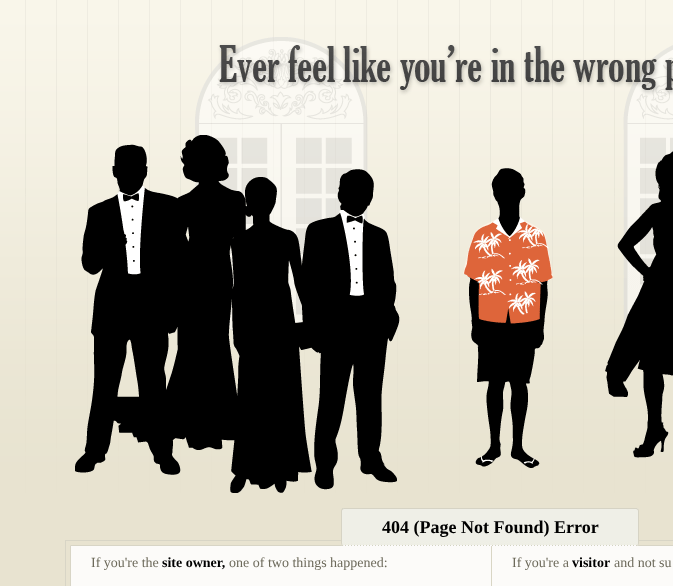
(async () => {
    const canvas = document.querySelector("canvas");
    canvas.width = 673;
    canvas.height = 586;
    const context = canvas.getContext("2d");
    context.miterLimit = 4;
    context.fontKerning = "normal";
    function write(s, x, y, font, color) {
        context.font = font;
        context.fillStyle = color;
        context.fillText(s, x, y);
    }
    function block(x, y, w, h, color) {
        context.fillStyle = color;
        context.fillRect(x, y, w, h);
    }
    async function photo(src, x, y, w, h) {
        const img = new Image();
        img.src = src;
        await img.decode();
        context.drawImage(img, x, y, w, h);
    }

    block(0, 0, 673, 586, "rgb(232, 227, 208)");
    await photo("media/1.png", 0, 0, 673, 493);
    context.strokeStyle = "rgb(216, 213, 198)";
    context.strokeRect(65.5, 540.5, 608, 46);
    context.fillStyle = "rgb(252, 251, 249)";
    context.beginPath();
    context.rect(70.5, 545.5, 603, 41);
    context.fill();
    context.stroke();
    await photo("media/2.png", 341, 508, 298, 38);
    context.fillStyle = "rgb(214, 211, 196)";
    context.beginPath();
    context.moveTo(344, 508);
    context.lineTo(636, 508);
    context.bezierCurveTo(638, 508, 639, 509, 639, 511);
    context.lineTo(639, 543);
    context.bezierCurveTo(639, 545, 638, 546, 636, 546);
    context.lineTo(344, 546);
    context.bezierCurveTo(342, 546, 341, 545, 341, 543);
    context.lineTo(341, 511);
    context.bezierCurveTo(341, 509, 342, 508, 344, 508);
    context.closePath();
    context.moveTo(344, 509);
    context.lineTo(636, 509);
    context.bezierCurveTo(637, 509, 638, 510, 638, 511);
    context.lineTo(638, 543);
    context.bezierCurveTo(638, 545, 637, 546, 636, 546);
    context.lineTo(344, 546);
    context.bezierCurveTo(343, 546, 342, 545, 342, 543);
    context.lineTo(342, 511);
    context.bezierCurveTo(342, 510, 343, 509, 344, 509);
    context.closePath();
    context.fill("evenodd");
    write("404 (Page Not Found) Error", 382, 533, "bold 18px Liberation Serif", "rgb(0, 0, 0)");
    block(491, 546, 1, 40, "rgb(217, 214, 197)");
    write("If you're the", 91, 567, "14px Liberation Serif", "rgb(109, 106, 91)");
    write("site owner,", 162, 567, "bold 14px Liberation Serif", "rgb(0, 0, 0)");
    write("one of two things happened:", 229, 567, "14px Liberation Serif", "rgb(109, 106, 91)");
    write("If you're a", 512, 567, "14px Liberation Serif", "rgb(109, 106, 91)");
    write("visitor", 572, 567, "bold 14px Liberation Serif", "rgb(0, 0, 0)");
    write("and not su", 614, 567, "14px Liberation Serif", "rgb(109, 106, 91)");
})();
